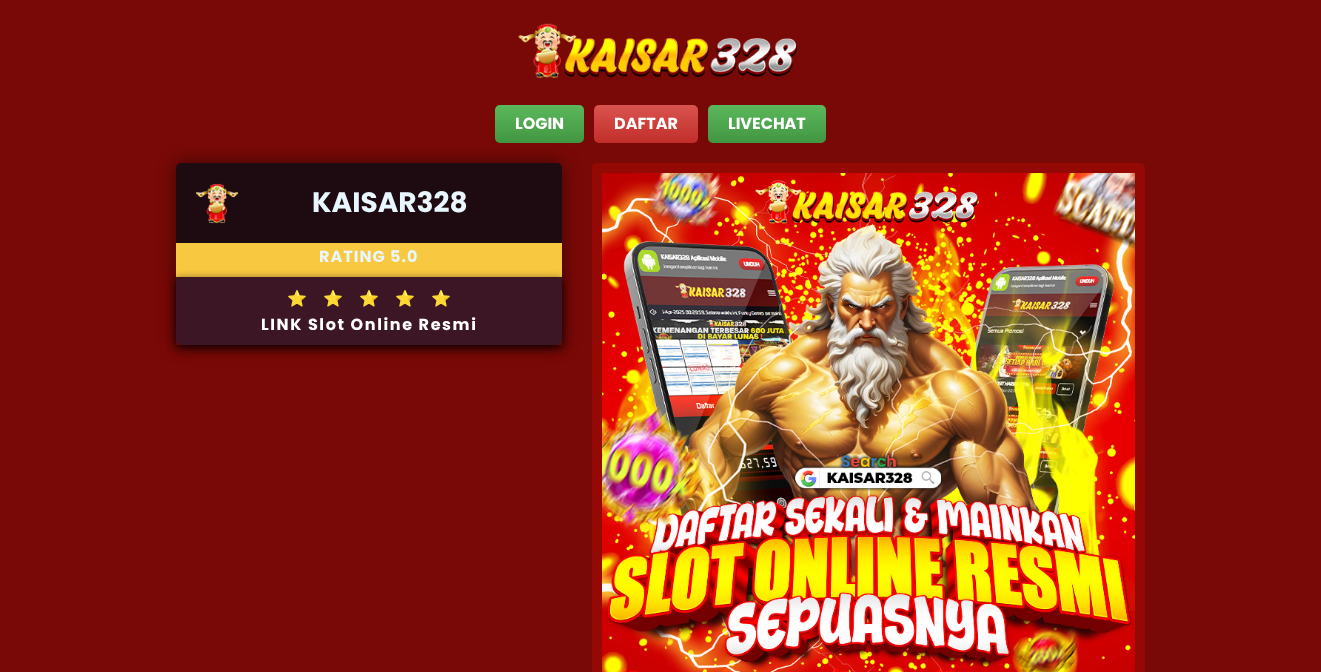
(async () => {
    const canvas = document.querySelector("canvas");
    canvas.width = 1321;
    canvas.height = 672;
    const context = canvas.getContext("2d");
    context.miterLimit = 4;
    context.fontKerning = "none";
    function write(s, x, y, font, color) {
        context.font = font;
        context.fillStyle = color;
        context.fillText(s, x, y);
    }
    function block(x, y, w, h, color) {
        context.fillStyle = color;
        context.fillRect(x, y, w, h);
    }
    function card(x, y, w, h, r, color) {
        context.fillStyle = color;
        context.beginPath();
        context.roundRect(x, y, w, h, r);
        context.fill();
    }
    async function photo(src, x, y, w, h) {
        const img = new Image();
        img.src = src;
        await img.decode();
        context.drawImage(img, x, y, w, h);
    }
    let gradient;

    block(0, 0, 1321, 672, "rgb(121, 9, 6)");
    await photo("media/1.png", 518, 23, 279, 55);
    gradient = context.createLinearGradient(540, 105, 540, 143);
    gradient.addColorStop(0, "rgb(92, 184, 92)");
    gradient.addColorStop(1, "rgb(65, 150, 65)");
    context.fillStyle = gradient;
    context.beginPath();
    context.roundRect(495, 105, 89, 38, 5);
    context.fill();
    write("LOGIN", 515, 129, "bold 16px Poppins", "rgb(255, 255, 255)");
    gradient = context.createLinearGradient(646, 105, 646, 143);
    gradient.addColorStop(0, "rgb(217, 83, 79)");
    gradient.addColorStop(1, "rgb(193, 46, 42)");
    context.fillStyle = gradient;
    context.beginPath();
    context.roundRect(594, 105, 104, 38, 5);
    context.fill();
    write("DAFTAR", 614, 129, "bold 16px Poppins", "rgb(255, 255, 255)");
    gradient = context.createLinearGradient(767, 105, 767, 143);
    gradient.addColorStop(0, "rgb(92, 184, 92)");
    gradient.addColorStop(1, "rgb(65, 150, 65)");
    context.fillStyle = gradient;
    context.beginPath();
    context.roundRect(708, 105, 118, 38, 5);
    context.fill();
    write("LIVECHAT", 728, 129, "bold 16px Poppins", "rgb(255, 255, 255)");
    context.save();
    context.beginPath();
    context.moveTo(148, 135);
    context.lineTo(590, 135);
    context.lineTo(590, 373);
    context.lineTo(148, 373);
    context.closePath();
    context.moveTo(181, 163);
    context.lineTo(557, 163);
    context.bezierCurveTo(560, 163, 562, 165, 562, 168);
    context.lineTo(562, 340);
    context.bezierCurveTo(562, 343, 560, 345, 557, 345);
    context.lineTo(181, 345);
    context.bezierCurveTo(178, 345, 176, 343, 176, 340);
    context.lineTo(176, 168);
    context.bezierCurveTo(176, 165, 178, 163, 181, 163);
    context.closePath();
    context.clip("evenodd");
    context.fillStyle = "rgba(0, 0, 0, 0.5)";
    context.filter = "blur(9px)";
    context.beginPath();
    context.roundRect(176, 163, 386, 182, 5);
    context.fill();
    context.filter = "none";
    context.restore();
    card(176, 163, 386, 182, 5, "rgba(4, 34, 66, 0.52)");
    context.fillStyle = "rgba(0, 0, 0, 0.5)";
    context.beginPath();
    context.roundRect(176, 163, 386, 80, [5, 5, 0, 0]);
    context.fill();
    await photo("media/2.png", 196, 183, 42, 41);
    write("KAISAR328", 312, 212, "bold 28px Poppins", "rgb(232, 246, 253)");
    block(176, 243, 386, 34, "rgb(249, 200, 65)");
    context.letterSpacing = "1px";
    write("RATING 5.0", 319, 262, "bold 16px Poppins", "rgb(232, 246, 253)");
    context.save();
    context.beginPath();
    context.moveTo(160, 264);
    context.lineTo(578, 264);
    context.lineTo(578, 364);
    context.lineTo(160, 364);
    context.closePath();
    context.moveTo(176, 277);
    context.lineTo(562, 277);
    context.lineTo(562, 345);
    context.lineTo(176, 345);
    context.closePath();
    context.clip("evenodd");
    context.fillStyle = "rgba(0, 0, 0, 0.8)";
    context.filter = "blur(5px)";
    context.beginPath();
    context.rect(176, 280, 386, 68);
    context.fill();
    context.filter = "none";
    context.restore();
    context.letterSpacing = "0px";
    write("⭐", 287, 304, "16px Noto Color Emoji", "rgb(0, 0, 0)");
    write("⭐", 323, 304, "16px Noto Color Emoji", "rgb(0, 0, 0)");
    write("⭐", 359, 304, "16px Noto Color Emoji", "rgb(0, 0, 0)");
    write("⭐", 395, 304, "16px Noto Color Emoji", "rgb(0, 0, 0)");
    write("⭐", 431, 304, "16px Noto Color Emoji", "rgb(0, 0, 0)");
    context.letterSpacing = "1.6px";
    write("LINK Slot Online Resmi", 261, 330, "bold 16px Poppins", "rgb(255, 255, 255)");
    card(592, 163, 553, 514, 5, "rgb(149, 9, 5)");
    await photo("media/3.png", 602, 173, 533, 499);
})();
